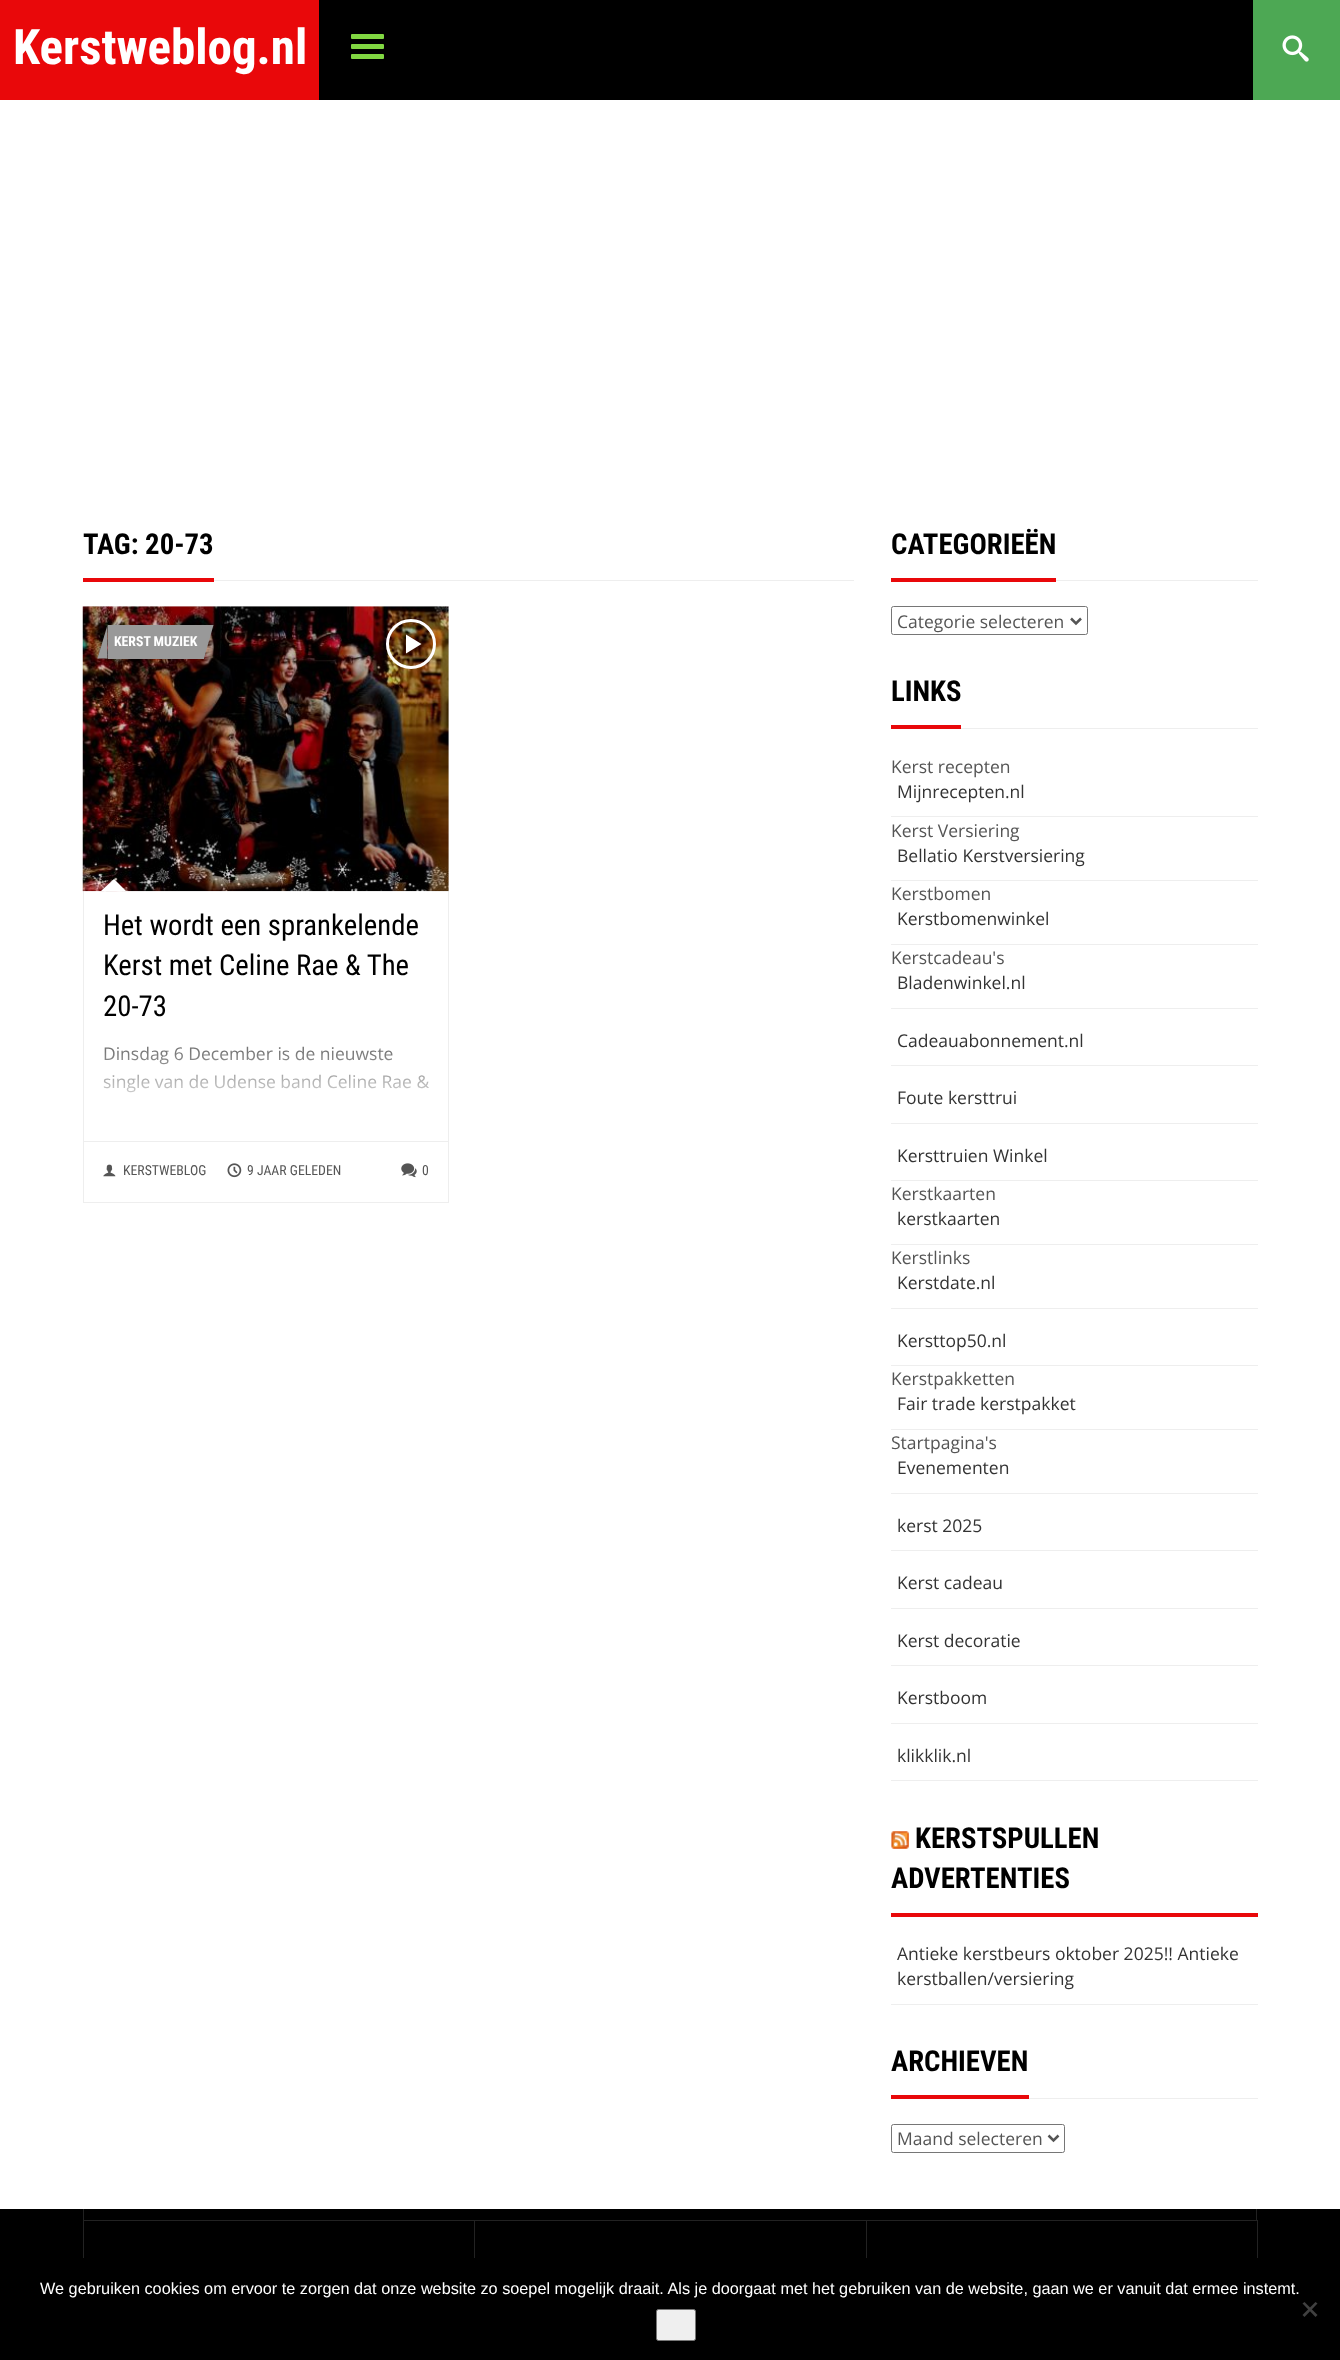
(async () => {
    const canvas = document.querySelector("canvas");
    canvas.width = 1340;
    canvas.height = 2360;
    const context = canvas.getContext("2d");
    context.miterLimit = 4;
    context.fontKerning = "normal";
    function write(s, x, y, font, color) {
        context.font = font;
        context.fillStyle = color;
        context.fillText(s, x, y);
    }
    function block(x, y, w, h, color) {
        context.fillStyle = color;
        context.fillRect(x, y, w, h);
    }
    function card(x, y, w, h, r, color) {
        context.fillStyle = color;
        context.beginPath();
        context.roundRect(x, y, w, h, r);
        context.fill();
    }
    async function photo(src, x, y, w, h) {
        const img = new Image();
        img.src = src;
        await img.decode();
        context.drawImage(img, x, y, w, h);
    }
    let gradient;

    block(0, 0, 1340, 2360, "rgb(255, 255, 255)");
    block(319, 0, 934, 100, "rgb(0, 0, 0)");
    block(0, 0, 319, 100, "rgb(233, 8, 10)");
    write("Kerstweblog.nl", 13, 64, "bold 49px Roboto Condensed", "rgb(255, 255, 255)");
    card(351, 44, 33, 5, 1, "rgb(129, 215, 66)");
    card(351, 34, 33, 5, 1, "rgb(129, 215, 66)");
    card(351, 54, 33, 5, 1, "rgb(129, 215, 66)");
    block(1253, 0, 87, 100, "rgb(77, 168, 84)");
    await photo("media/1.png", 1282, 35, 27, 27);
    block(214, 580, 640, 1, "rgb(238, 238, 238)");
    block(83, 578, 131, 4, "rgb(233, 8, 10)");
    write("TAG: 20-73", 83, 554, "bold 28.75px Roboto Condensed", "rgb(0, 0, 0)");
    block(83, 606, 366, 284, "rgb(238, 238, 238)");
    context.strokeStyle = "rgb(238, 238, 238)";
    context.strokeRect(83.5, 890.5, 365, 312);
    await photo("media/2.png", 82, 606, 367, 286);
    block(108, 625, 96, 34, "rgb(153, 153, 153)");
    context.beginPath();
    context.moveTo(107.5, 625);
    context.lineTo(107.5, 658.5);
    context.lineTo(97.5, 658.5);
    context.closePath();
    context.fill();
    write("KERST MUZIEK", 114, 646, "bold 13.75px Roboto Condensed", "rgb(255, 255, 255)");
    context.fillStyle = "rgb(153, 153, 153)";
    context.beginPath();
    context.moveTo(204, 658.5);
    context.lineTo(204, 625);
    context.lineTo(213.5, 625);
    context.closePath();
    context.fill();
    context.fillStyle = "rgba(0, 0, 0, 0.1)";
    context.beginPath();
    context.arc(411, 644, 23.5, 0, Math.PI * 2);
    context.fill();
    context.strokeStyle = "rgb(255, 255, 255)";
    context.lineWidth = 3;
    context.stroke();
    context.fillStyle = "rgb(255, 255, 255)";
    context.beginPath();
    context.moveTo(406, 634.5);
    context.lineTo(421.5, 644);
    context.lineTo(406, 653.5);
    context.closePath();
    context.fill();
    context.beginPath();
    context.moveTo(126, 891);
    context.lineTo(101, 891);
    context.lineTo(114, 879);
    context.closePath();
    context.fill();
    write("Het wordt een sprankelende", 103, 935, "28.75px Roboto Condensed", "rgb(0, 0, 0)");
    write("Kerst met Celine Rae & The", 103, 975, "28.75px Roboto Condensed", "rgb(0, 0, 0)");
    write("20-73", 103, 1016, "28.75px Roboto Condensed", "rgb(0, 0, 0)");
    write("Dinsdag 6 December is de nieuwste", 103, 1060, "17.5px Open Sans", "rgb(119, 119, 119)");
    write("single van de Udense band Celine Rae &", 103, 1088, "17.5px Open Sans", "rgb(119, 119, 119)");
    gradient = context.createLinearGradient(266, 1051, 266, 1201);
    gradient.addColorStop(0, "rgba(255, 255, 255, 0)");
    gradient.addColorStop(0.45, "rgb(255, 255, 255)");
    gradient.addColorStop(1, "rgb(255, 255, 255)");
    context.fillStyle = gradient;
    context.fillRect(103, 1052, 326, 41);
    block(84, 1141, 364, 1, "rgb(238, 238, 238)");
    await photo("media/3.png", 103, 1164, 13, 13);
    write("KERSTWEBLOG", 123, 1175, "13.75px Roboto Condensed", "rgb(85, 85, 85)");
    await photo("media/4.png", 227, 1163, 15, 15);
    write("9 JAAR GELEDEN", 247, 1175, "13.75px Roboto Condensed", "rgb(85, 85, 85)");
    await photo("media/5.png", 401, 1163, 16, 15);
    write("0", 422, 1175, "13.75px Roboto Condensed", "rgb(85, 85, 85)");
    block(1056, 580, 202, 1, "rgb(238, 238, 238)");
    block(891, 578, 165, 4, "rgb(233, 8, 10)");
    write("CATEGORIEËN", 891, 554, "bold 28.75px Roboto Condensed", "rgb(0, 0, 0)");
    context.beginPath();
    context.roundRect(891.5, 606.5, 196, 28, 2);
    context.strokeStyle = "rgb(118, 118, 118)";
    context.lineWidth = 1;
    context.stroke();
    context.beginPath();
    context.moveTo(1071, 618.5);
    context.lineTo(1076, 623.5);
    context.lineTo(1081, 618.5);
    context.strokeStyle = "rgb(85, 85, 85)";
    context.lineWidth = 2.5;
    context.stroke();
    write("Categorie selecteren", 897, 628, "17.5px Open Sans", "rgb(85, 85, 85)");
    block(961, 728, 297, 1, "rgb(238, 238, 238)");
    block(891, 725, 70, 4, "rgb(233, 8, 10)");
    write("LINKS", 891, 701, "bold 28.75px Roboto Condensed", "rgb(0, 0, 0)");
    write("Kerst recepten", 891, 773, "17.5px Open Sans", "rgb(85, 85, 85)");
    block(891, 816, 367, 1, "rgb(238, 238, 238)");
    write("Mijnrecepten.nl", 897, 798, "17.5px Open Sans", "rgb(51, 51, 51)");
    write("Kerst Versiering", 891, 837, "17.5px Open Sans", "rgb(85, 85, 85)");
    block(891, 880, 367, 1, "rgb(238, 238, 238)");
    write("Bellatio Kerstversiering", 897, 862, "17.5px Open Sans", "rgb(51, 51, 51)");
    write("Kerstbomen", 891, 900, "17.5px Open Sans", "rgb(85, 85, 85)");
    block(891, 944, 367, 1, "rgb(238, 238, 238)");
    write("Kerstbomenwinkel", 897, 925, "17.5px Open Sans", "rgb(51, 51, 51)");
    write("Kerstcadeau's", 891, 964, "17.5px Open Sans", "rgb(85, 85, 85)");
    block(891, 1008, 367, 1, "rgb(238, 238, 238)");
    write("Bladenwinkel.nl", 897, 989, "17.5px Open Sans", "rgb(51, 51, 51)");
    block(891, 1065, 367, 1, "rgb(238, 238, 238)");
    write("Cadeauabonnement.nl", 897, 1047, "17.5px Open Sans", "rgb(51, 51, 51)");
    block(891, 1123, 367, 1, "rgb(238, 238, 238)");
    write("Foute kersttrui", 897, 1104, "17.5px Open Sans", "rgb(51, 51, 51)");
    block(891, 1180, 367, 1, "rgb(238, 238, 238)");
    write("Kersttruien Winkel", 897, 1162, "17.5px Open Sans", "rgb(51, 51, 51)");
    write("Kerstkaarten", 891, 1200, "17.5px Open Sans", "rgb(85, 85, 85)");
    block(891, 1244, 367, 1, "rgb(238, 238, 238)");
    write("kerstkaarten", 897, 1225, "17.5px Open Sans", "rgb(51, 51, 51)");
    write("Kerstlinks", 891, 1264, "17.5px Open Sans", "rgb(85, 85, 85)");
    block(891, 1308, 367, 1, "rgb(238, 238, 238)");
    write("Kerstdate.nl", 897, 1289, "17.5px Open Sans", "rgb(51, 51, 51)");
    block(891, 1365, 367, 1, "rgb(238, 238, 238)");
    write("Kersttop50.nl", 897, 1347, "17.5px Open Sans", "rgb(51, 51, 51)");
    write("Kerstpakketten", 891, 1385, "17.5px Open Sans", "rgb(85, 85, 85)");
    block(891, 1429, 367, 1, "rgb(238, 238, 238)");
    write("Fair trade kerstpakket", 897, 1410, "17.5px Open Sans", "rgb(51, 51, 51)");
    write("Startpagina's", 891, 1449, "17.5px Open Sans", "rgb(85, 85, 85)");
    block(891, 1493, 367, 1, "rgb(238, 238, 238)");
    write("Evenementen", 897, 1474, "17.5px Open Sans", "rgb(51, 51, 51)");
    block(891, 1550, 367, 1, "rgb(238, 238, 238)");
    write("kerst 2025", 897, 1532, "17.5px Open Sans", "rgb(51, 51, 51)");
    block(891, 1608, 367, 1, "rgb(238, 238, 238)");
    write("Kerst cadeau", 897, 1589, "17.5px Open Sans", "rgb(51, 51, 51)");
    block(891, 1665, 367, 1, "rgb(238, 238, 238)");
    write("Kerst decoratie", 897, 1647, "17.5px Open Sans", "rgb(51, 51, 51)");
    block(891, 1723, 367, 1, "rgb(238, 238, 238)");
    write("Kerstboom", 897, 1704, "17.5px Open Sans", "rgb(51, 51, 51)");
    block(891, 1780, 367, 1, "rgb(238, 238, 238)");
    write("klikklik.nl", 897, 1762, "17.5px Open Sans", "rgb(51, 51, 51)");
    block(891, 1913, 367, 4, "rgb(233, 8, 10)");
    await photo("media/6.png", 891, 1831, 18, 18);
    write("KERSTSPULLEN", 915, 1848, "bold 28.75px Roboto Condensed", "rgb(0, 0, 0)");
    write("ADVERTENTIES", 891, 1888, "bold 28.75px Roboto Condensed", "rgb(0, 0, 0)");
    block(891, 2004, 367, 1, "rgb(238, 238, 238)");
    write("Antieke kerstbeurs oktober 2025!! Antieke", 897, 1960, "17.5px Open Sans", "rgb(51, 51, 51)");
    write("kerstballen/versiering", 897, 1985, "17.5px Open Sans", "rgb(51, 51, 51)");
    block(1029, 2098, 229, 1, "rgb(238, 238, 238)");
    block(891, 2095, 138, 4, "rgb(233, 8, 10)");
    write("ARCHIEVEN", 891, 2071, "bold 28.75px Roboto Condensed", "rgb(0, 0, 0)");
    context.beginPath();
    context.roundRect(891.5, 2124.5, 173, 28, 2);
    context.strokeStyle = "rgb(118, 118, 118)";
    context.lineWidth = 1;
    context.stroke();
    context.beginPath();
    context.moveTo(1048.5, 2135.5);
    context.lineTo(1053.5, 2140.5);
    context.lineTo(1058.5, 2135.5);
    context.strokeStyle = "rgb(85, 85, 85)";
    context.lineWidth = 2.5;
    context.stroke();
    write("Maand selecteren", 897, 2145, "17.5px Open Sans", "rgb(85, 85, 85)");
    block(0, 2209, 1340, 49, "rgb(0, 0, 0)");
    context.strokeStyle = "rgb(34, 34, 34)";
    context.lineWidth = 1;
    context.strokeRect(83.5, 2220.5, 1174, 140);
    block(1256, 2209, 1, 12, "rgb(33, 33, 33)");
    block(83, 2209, 1, 12, "rgb(33, 33, 33)");
    block(474, 2220, 1, 38, "rgb(34, 34, 34)");
    block(866, 2220, 1, 38, "rgb(34, 34, 34)");
    block(0, 2258, 1340, 102, "rgb(0, 0, 0)");
    write("We gebruiken cookies om ervoor te zorgen dat onze website zo soepel mogelijk draait. Als je doorgaat met het gebruiken van de website, gaan we er vanuit dat ermee instemt.", 40, 2294, "16.25px Liberation Sans", "rgb(255, 255, 255)");
    context.fillStyle = "rgb(239, 239, 239)";
    context.beginPath();
    context.roundRect(656.5, 2309.5, 39, 31, 2);
    context.fill();
    context.strokeStyle = "rgb(118, 118, 118)";
    context.stroke();
    context.fillStyle = "rgb(64, 64, 64)";
    context.beginPath();
    context.moveTo(1315.5, 2302);
    context.lineTo(1317.5, 2303.5);
    context.lineTo(1304.5, 2317);
    context.lineTo(1302.5, 2315);
    context.closePath();
    context.fill();
    context.beginPath();
    context.moveTo(1302.5, 2303.5);
    context.lineTo(1304.5, 2302);
    context.lineTo(1317.5, 2315);
    context.lineTo(1315.5, 2317);
    context.closePath();
    context.fill();
})();
